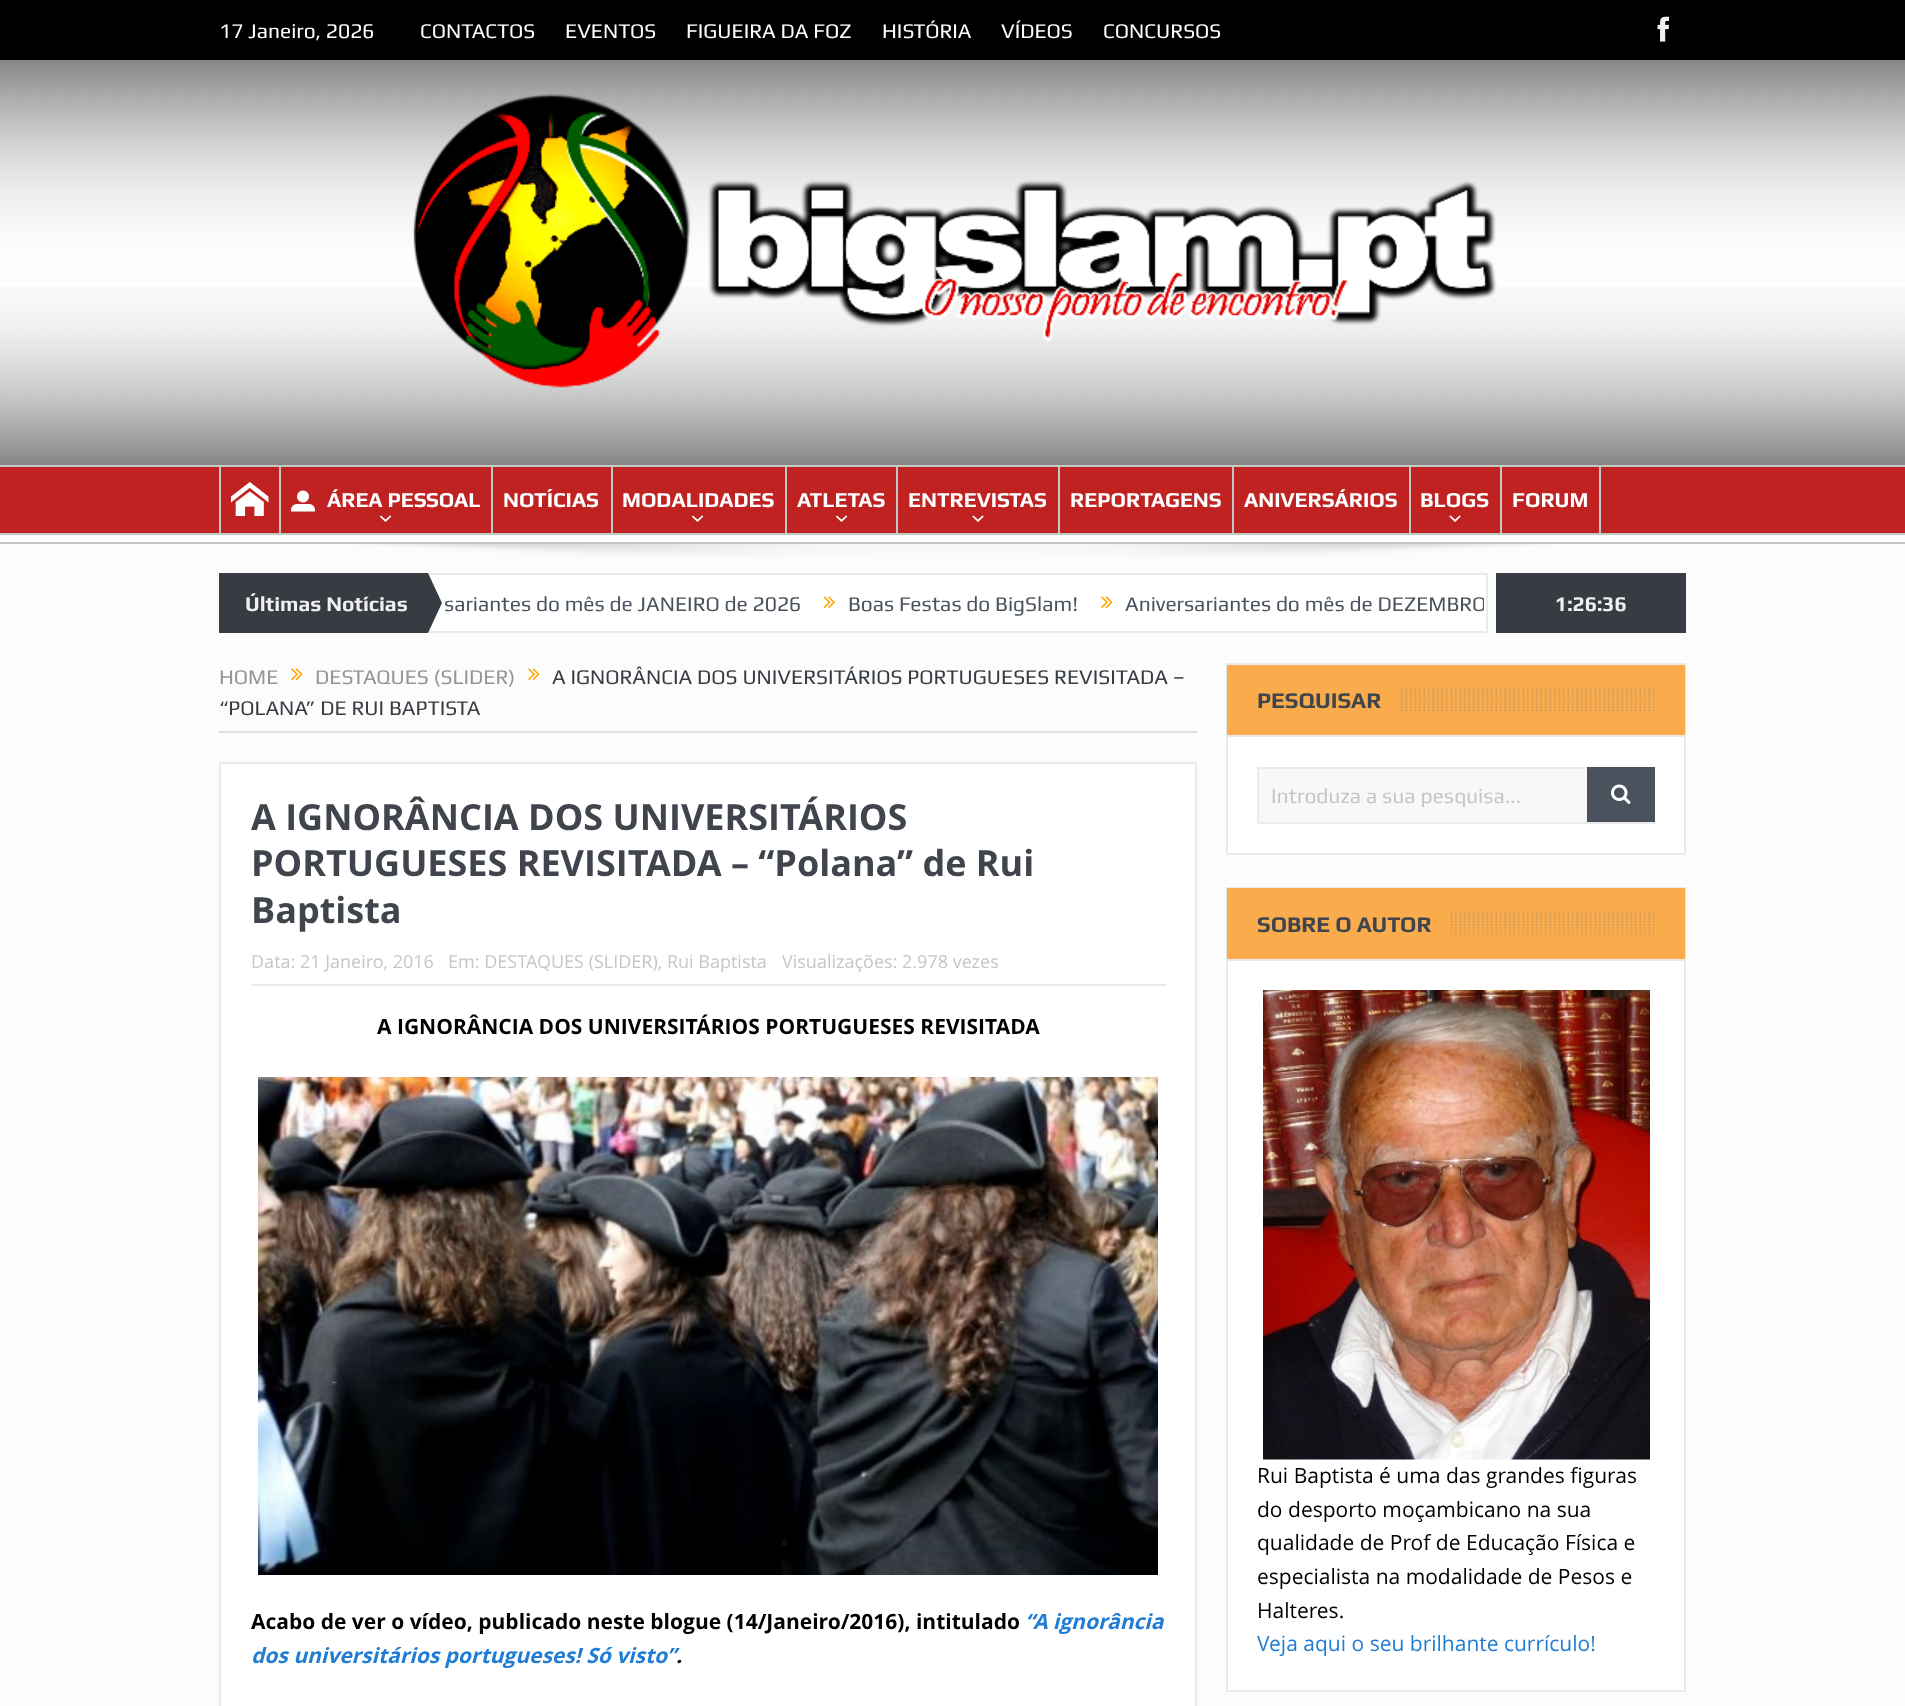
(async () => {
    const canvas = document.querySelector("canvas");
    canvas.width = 1905;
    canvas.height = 1706;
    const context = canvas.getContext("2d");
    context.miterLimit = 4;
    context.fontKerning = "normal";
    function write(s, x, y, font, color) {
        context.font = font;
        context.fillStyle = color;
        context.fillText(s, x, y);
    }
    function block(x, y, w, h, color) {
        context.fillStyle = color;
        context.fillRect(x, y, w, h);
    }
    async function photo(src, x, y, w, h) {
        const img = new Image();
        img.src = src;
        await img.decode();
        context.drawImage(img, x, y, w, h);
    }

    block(0, 0, 1905, 1706, "rgb(252, 252, 252)");
    block(0, 0, 1905, 60, "rgb(0, 0, 0)");
    write("17 Janeiro, 2026", 219, 38, "21px Play", "rgb(255, 255, 255)");
    write("CONTACTOS", 420, 38, "21px Play", "rgb(255, 255, 255)");
    write("EVENTOS", 565, 38, "21px Play", "rgb(255, 255, 255)");
    write("FIGUEIRA DA FOZ", 686, 38, "21px Play", "rgb(255, 255, 255)");
    write("HISTÓRIA", 882, 38, "21px Play", "rgb(255, 255, 255)");
    write("VÍDEOS", 1001, 38, "21px Play", "rgb(255, 255, 255)");
    write("CONCURSOS", 1103, 38, "21px Play", "rgb(255, 255, 255)");
    await photo("media/1.png", 1657, 16, 13, 26);
    await photo("media/2.png", 0, 60, 1905, 405);
    await photo("media/3.png", 413, 94, 1084, 294);
    block(0, 535, 1905, 7, "rgb(255, 255, 255)");
    block(0, 465, 1905, 2, "rgb(198, 198, 198)");
    block(0, 542, 1905, 2, "rgb(198, 198, 198)");
    block(0, 467, 1905, 66, "rgb(192, 33, 33)");
    block(0, 533, 1905, 2, "rgb(198, 198, 198)");
    block(219, 467, 2, 66, "rgb(198, 198, 198)");
    await photo("media/4.png", 231, 482, 38, 34);
    block(279, 467, 2, 66, "rgb(198, 198, 198)");
    await photo("media/5.png", 291, 490, 24, 22);
    write("ÁREA PESSOAL", 327, 507, "bold 21.25px Play", "rgb(255, 255, 255)");
    await photo("media/6.png", 380, 515, 11, 7);
    block(491, 467, 2, 66, "rgb(198, 198, 198)");
    write("NOTÍCIAS", 503, 507, "bold 21.25px Play", "rgb(255, 255, 255)");
    block(611, 467, 2, 66, "rgb(198, 198, 198)");
    write("MODALIDADES", 622, 507, "bold 21.25px Play", "rgb(255, 255, 255)");
    await photo("media/6.png", 692, 515, 11, 7);
    block(785, 467, 2, 66, "rgb(198, 198, 198)");
    write("ATLETAS", 797, 507, "bold 21.25px Play", "rgb(255, 255, 255)");
    await photo("media/6.png", 836, 515, 11, 7);
    block(896, 467, 2, 66, "rgb(198, 198, 198)");
    write("ENTREVISTAS", 908, 507, "bold 21.25px Play", "rgb(255, 255, 255)");
    await photo("media/7.png", 972, 515, 12, 7);
    block(1058, 467, 2, 66, "rgb(198, 198, 198)");
    write("REPORTAGENS", 1070, 507, "bold 21.25px Play", "rgb(255, 255, 255)");
    block(1232, 467, 2, 66, "rgb(198, 198, 198)");
    write("ANIVERSÁRIOS", 1244, 507, "bold 21.25px Play", "rgb(255, 255, 255)");
    block(1409, 467, 2, 66, "rgb(198, 198, 198)");
    write("BLOGS", 1420, 507, "bold 21.25px Play", "rgb(255, 255, 255)");
    await photo("media/7.png", 1449, 515, 12, 7);
    block(1599, 467, 2, 66, "rgb(198, 198, 198)");
    block(1500, 467, 2, 66, "rgb(198, 198, 198)");
    write("FORUM", 1512, 507, "bold 21.25px Play", "rgb(255, 255, 255)");
    await photo("media/8.png", 356, 544, 1196, 13);
    block(219, 573, 209, 60, "rgb(55, 60, 67)");
    write("Últimas Notícias", 245, 611, "bold 21px Play", "rgb(240, 240, 240)");
    context.fillStyle = "rgb(255, 255, 255)";
    context.beginPath();
    context.rect(429, 574, 1058, 58);
    context.fill();
    context.strokeStyle = "rgb(234, 234, 234)";
    context.lineWidth = 2;
    context.stroke();
    context.fillStyle = "rgb(55, 60, 67)";
    context.beginPath();
    context.moveTo(428, 633);
    context.lineTo(428, 573);
    context.lineTo(442, 603);
    context.closePath();
    context.fill();
    write("sariantes do mês de JANEIRO de 2026", 444, 611, "21px Play", "rgb(74, 82, 93)");
    await photo("media/9.png", 823, 596, 12, 12);
    write("Boas Festas do BigSlam!", 848, 611, "21px Play", "rgb(74, 82, 93)");
    await photo("media/10.png", 1101, 596, 12, 12);
    context.save();
    context.beginPath();
    context.rect(444, 575, 1040, 57);
    context.clip();
    write("Aniversariantes do mês de DEZEMBRO", 1125, 611, "21px Play", "rgb(74, 82, 93)");
    context.restore();
    block(1496, 573, 190, 60, "rgb(55, 60, 67)");
    write("1:26:36", 1555, 611, "bold 21px Play", "rgb(240, 240, 240)");
    block(219, 731, 978, 2, "rgb(224, 224, 224)");
    write("HOME", 219, 684, "21px Play", "rgb(149, 149, 149)");
    await photo("media/11.png", 291, 668, 12, 12);
    write("DESTAQUES (SLIDER)", 315, 684, "21px Play", "rgb(149, 149, 149)");
    await photo("media/11.png", 528, 668, 12, 12);
    write("A IGNORÂNCIA DOS UNIVERSITÁRIOS PORTUGUESES REVISITADA –", 552, 684, "21px Play", "rgb(55, 60, 67)");
    write("“POLANA” DE RUI BAPTISTA", 219, 715, "21px Play", "rgb(55, 60, 67)");
    context.fillStyle = "rgb(255, 255, 255)";
    context.beginPath();
    context.rect(220, 763, 976, 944);
    context.fill();
    context.stroke();
    write("A IGNORÂNCIA DOS UNIVERSITÁRIOS", 251, 830, "bold 36px Open Sans", "rgb(64, 69, 77)");
    write("PORTUGUESES REVISITADA – “Polana” de Rui", 251, 876, "bold 36px Open Sans", "rgb(64, 69, 77)");
    write("Baptista", 251, 923, "bold 36px Open Sans", "rgb(64, 69, 77)");
    block(251, 984, 915, 2, "rgb(234, 234, 234)");
    write("Data: 21 Janeiro, 2016", 251, 968, "18px Open Sans", "rgb(198, 198, 198)");
    write("Em: DESTAQUES (SLIDER), Rui Baptista", 448, 968, "18px Open Sans", "rgb(198, 198, 198)");
    write("Visualizações: 2.978 vezes", 782, 968, "18px Open Sans", "rgb(198, 198, 198)");
    write("A IGNORÂNCIA DOS UNIVERSITÁRIOS PORTUGUESES REVISITADA", 377, 1034, "bold 21px Open Sans", "rgb(0, 0, 0)");
    await photo("media/12.png", 258, 1077, 900, 498);
    write("Acabo de ver o vídeo, publicado neste blogue (14/Janeiro/2016), intitulado", 251, 1629, "bold 21px Open Sans", "rgb(0, 0, 0)");
    write("“A ignorância", 1025, 1629, "italic bold 21px Open Sans", "rgb(33, 125, 211)");
    write("dos universitários portugueses! Só visto”", 251, 1663, "italic bold 21px Open Sans", "rgb(33, 125, 211)");
    write(".", 676, 1663, "italic bold 21px Open Sans", "rgb(0, 0, 0)");
    block(1228, 737, 456, 116, "rgb(255, 255, 255)");
    context.strokeRect(1227, 664, 458, 190);
    block(1227, 665, 458, 70, "rgb(250, 172, 77)");
    block(1227, 735, 458, 2, "rgb(234, 234, 234)");
    await photo("media/13.png", 1398, 688, 257, 23);
    write("PESQUISAR", 1257, 708, "bold 22.5px Play", "rgb(64, 69, 77)");
    block(1259, 769, 328, 53, "rgb(248, 248, 248)");
    context.strokeRect(1258, 768, 396, 55);
    context.save();
    context.beginPath();
    context.rect(1271, 783, 315, 24);
    context.clip();
    write("Introduza a sua pesquisa...", 1271, 803, "21px Play", "rgb(198, 198, 198)");
    context.restore();
    block(1587, 767, 68, 55, "rgb(74, 82, 93)");
    await photo("media/14.png", 1611, 784, 20, 20);
    block(1228, 961, 456, 729, "rgb(255, 255, 255)");
    context.strokeRect(1227, 888, 458, 803);
    block(1227, 888, 458, 71, "rgb(250, 172, 77)");
    block(1227, 959, 458, 2, "rgb(234, 234, 234)");
    await photo("media/15.png", 1450, 912, 205, 23);
    write("SOBRE O AUTOR", 1257, 932, "bold 22.5px Play", "rgb(64, 69, 77)");
    await photo("media/16.png", 1263, 990, 387, 470);
    write("Rui Baptista é uma das grandes figuras", 1257, 1483, "21px Open Sans", "rgb(0, 0, 0)");
    write("do desporto moçambicano na sua", 1257, 1517, "21px Open Sans", "rgb(0, 0, 0)");
    write("qualidade de Prof de Educação Física e", 1257, 1550, "21px Open Sans", "rgb(0, 0, 0)");
    write("especialista na modalidade de Pesos e", 1257, 1584, "21px Open Sans", "rgb(0, 0, 0)");
    write("Halteres.", 1257, 1618, "21px Open Sans", "rgb(0, 0, 0)");
    write("Veja aqui o seu brilhante currículo!", 1257, 1651, "21px Open Sans", "rgb(33, 125, 211)");
})();
